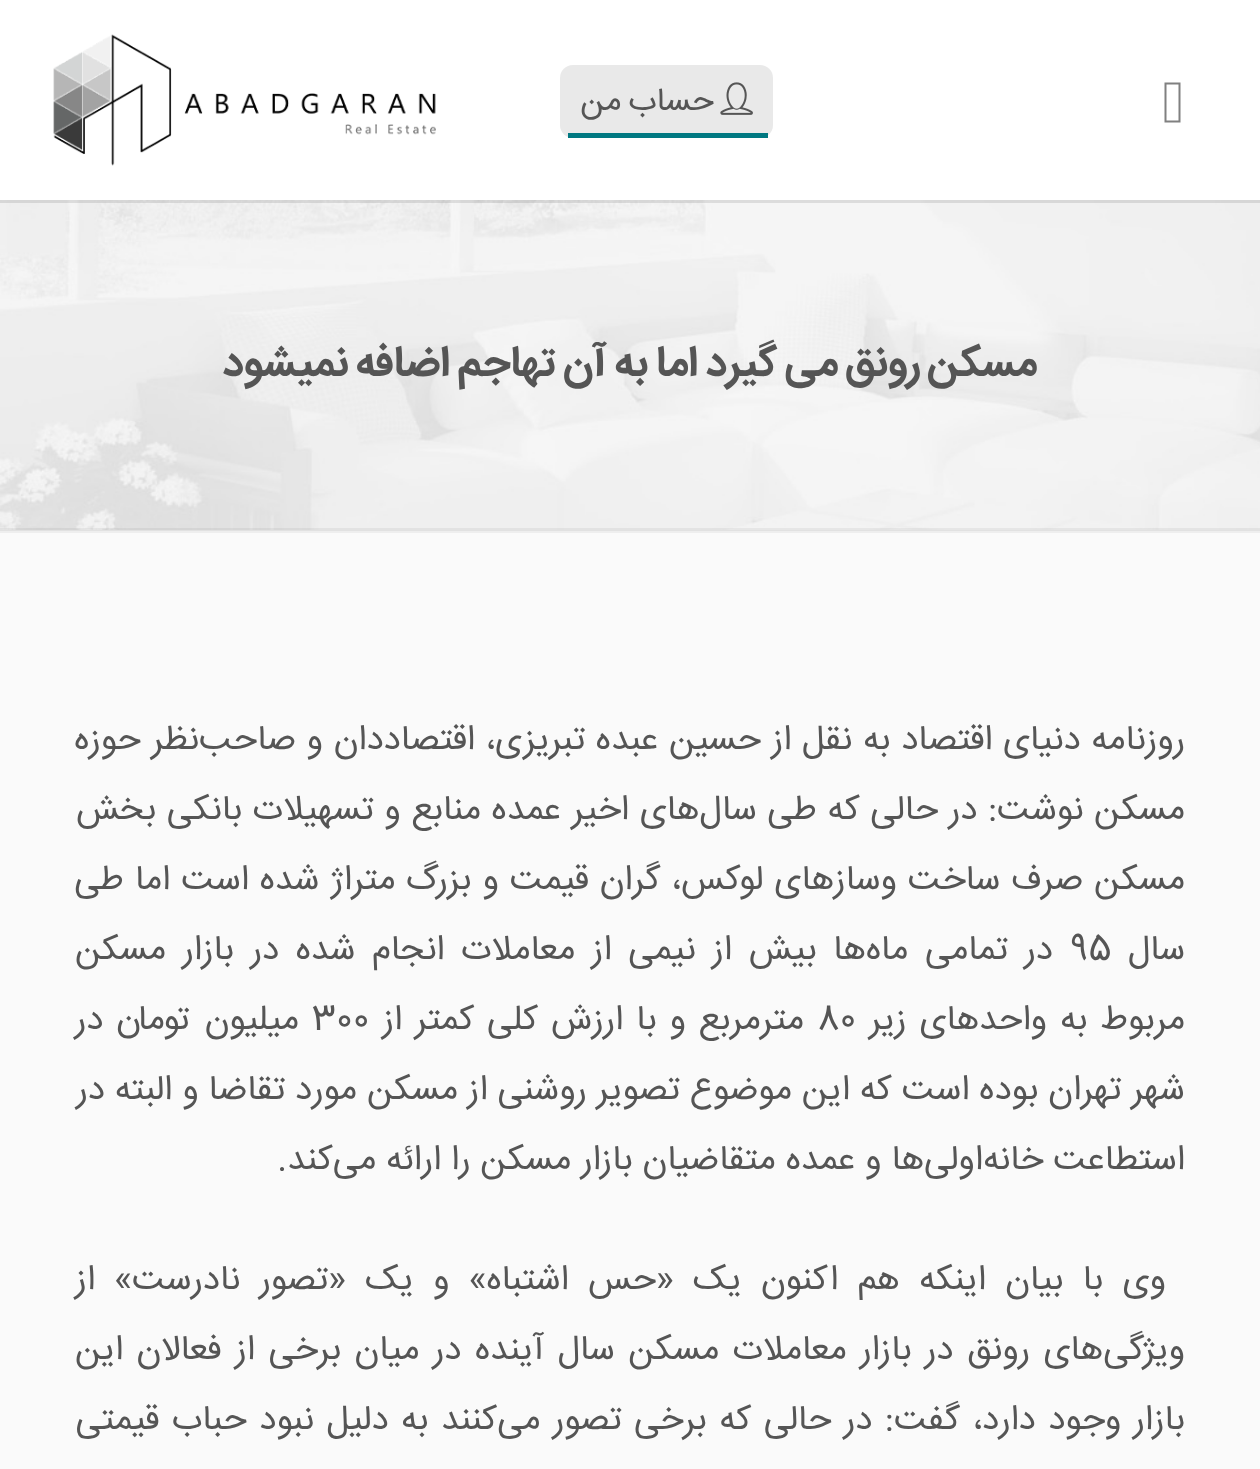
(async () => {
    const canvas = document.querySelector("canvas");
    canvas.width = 1260;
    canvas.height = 1469;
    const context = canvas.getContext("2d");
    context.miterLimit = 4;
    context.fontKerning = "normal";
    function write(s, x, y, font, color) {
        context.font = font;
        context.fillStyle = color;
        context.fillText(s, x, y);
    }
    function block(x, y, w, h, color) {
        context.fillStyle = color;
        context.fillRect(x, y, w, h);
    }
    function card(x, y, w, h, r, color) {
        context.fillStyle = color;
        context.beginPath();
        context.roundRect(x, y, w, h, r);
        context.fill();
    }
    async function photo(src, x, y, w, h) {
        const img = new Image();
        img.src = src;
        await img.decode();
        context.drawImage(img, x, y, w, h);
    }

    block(0, 0, 1260, 1469, "rgb(250, 250, 250)");
    block(0, 0, 1260, 200, "rgb(255, 255, 255)");
    context.fillStyle = "rgb(128, 128, 128)";
    context.beginPath();
    context.moveTo(1164.5, 122.5);
    context.lineTo(1164.5, 82.5);
    context.lineTo(1180.5, 82.5);
    context.lineTo(1180.5, 122.5);
    context.closePath();
    context.moveTo(1166.5, 120.5);
    context.lineTo(1178.5, 120.5);
    context.lineTo(1178.5, 84.5);
    context.lineTo(1166.5, 84.5);
    context.closePath();
    context.fill();
    card(560, 65, 213, 73, 13, "rgb(233, 233, 233)");
    block(568, 133, 200, 5, "rgb(0, 120, 129)");
    await photo("media/1.png", 720, 82, 33, 33);
    context.wordSpacing = "-2.5px";
    context.direction = "rtl";
    write("حساب من", 714, 110, "32.5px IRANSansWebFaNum", "rgb(85, 85, 85)");
    await photo("media/2.png", 53, 34, 383, 132);
    await photo("media/3.png", 0, 200, 1260, 330);
    block(0, 200, 1260, 3, "rgba(0, 0, 0, 0.1)");
    write("مسکن رونق می گیرد اما به آن تهاجم اضافه نمیشود", 1037, 375, "bold 42.5px IRANSansWebFaNum", "rgb(85, 85, 85)");
    block(0, 530, 1260, 3, "rgb(238, 238, 238)");
    block(0, 528, 1260, 3, "rgba(0, 0, 0, 0.05)");
    context.wordSpacing = "0.75px";
    write("روزنامه دنیای اقتصاد به نقل از حسین عبده تبریزی، اقتصاددان و صاحب‌نظر حوزه", 1185, 749, "35px IRANSansWebFaNum", "rgb(85, 85, 85)");
    write("مسکن نوشت: در حالی که طی سال‌های اخیر عمده منابع و تسهیلات بانکی بخش", 1185, 819, "35px IRANSansWebFaNum", "rgb(85, 85, 85)");
    context.wordSpacing = "1px";
    write("مسکن صرف ساخت وسازهای لوکس، گران قیمت و بزرگ متراژ شده است اما طی", 1185, 889, "35px IRANSansWebFaNum", "rgb(85, 85, 85)");
    context.wordSpacing = "0px";
    write("سال", 1185, 959, "35px IRANSansWebFaNum", "rgb(85, 85, 85)");
    context.direction = "ltr";
    write("95", 1070, 959, "35px IRANSansWebFaNum", "rgb(85, 85, 85)");
    context.wordSpacing = "6.75px";
    context.direction = "rtl";
    write("در تمامی ماه‌ها بیش از نیمی از معاملات انجام شده در بازار مسکن", 1053, 959, "35px IRANSansWebFaNum", "rgb(85, 85, 85)");
    context.wordSpacing = "3px";
    write("مربوط به واحدهای زیر", 1185, 1029, "35px IRANSansWebFaNum", "rgb(85, 85, 85)");
    context.wordSpacing = "0px";
    context.direction = "ltr";
    write("80", 817, 1029, "35px IRANSansWebFaNum", "rgb(85, 85, 85)");
    context.wordSpacing = "3px";
    context.direction = "rtl";
    write("مترمربع و با ارزش کلی کمتر از", 804, 1029, "35px IRANSansWebFaNum", "rgb(85, 85, 85)");
    context.wordSpacing = "0px";
    context.direction = "ltr";
    write("300", 312, 1029, "35px IRANSansWebFaNum", "rgb(85, 85, 85)");
    context.wordSpacing = "3px";
    context.direction = "rtl";
    write("میلیون تومان در", 299, 1029, "35px IRANSansWebFaNum", "rgb(85, 85, 85)");
    context.wordSpacing = "0px";
    write("شهر تهران بوده است که این موضوع تصویر روشنی از مسکن مورد تقاضا و البته در", 1185, 1099, "35px IRANSansWebFaNum", "rgb(85, 85, 85)");
    write("استطاعت خانه‌اولی‌ها و عمده متقاضیان بازار مسکن را ارائه می‌کند.", 1185, 1169, "35px IRANSansWebFaNum", "rgb(85, 85, 85)");
    context.wordSpacing = "9.4px";
    write("وی با بیان اینکه هم اکنون یک «حس اشتباه» و یک «تصور نادرست» از", 1166, 1289, "35px IRANSansWebFaNum", "rgb(85, 85, 85)");
    context.wordSpacing = "3.6px";
    write("ویژگی‌های رونق در بازار معاملات مسکن سال آینده در میان برخی از فعالان این", 1185, 1359, "35px IRANSansWebFaNum", "rgb(85, 85, 85)");
    context.wordSpacing = "2.5px";
    write("بازار وجود دارد، گفت: در حالی که برخی تصور می‌کنند به دلیل نبود حباب قیمتی", 1185, 1429, "35px IRANSansWebFaNum", "rgb(85, 85, 85)");
})();
